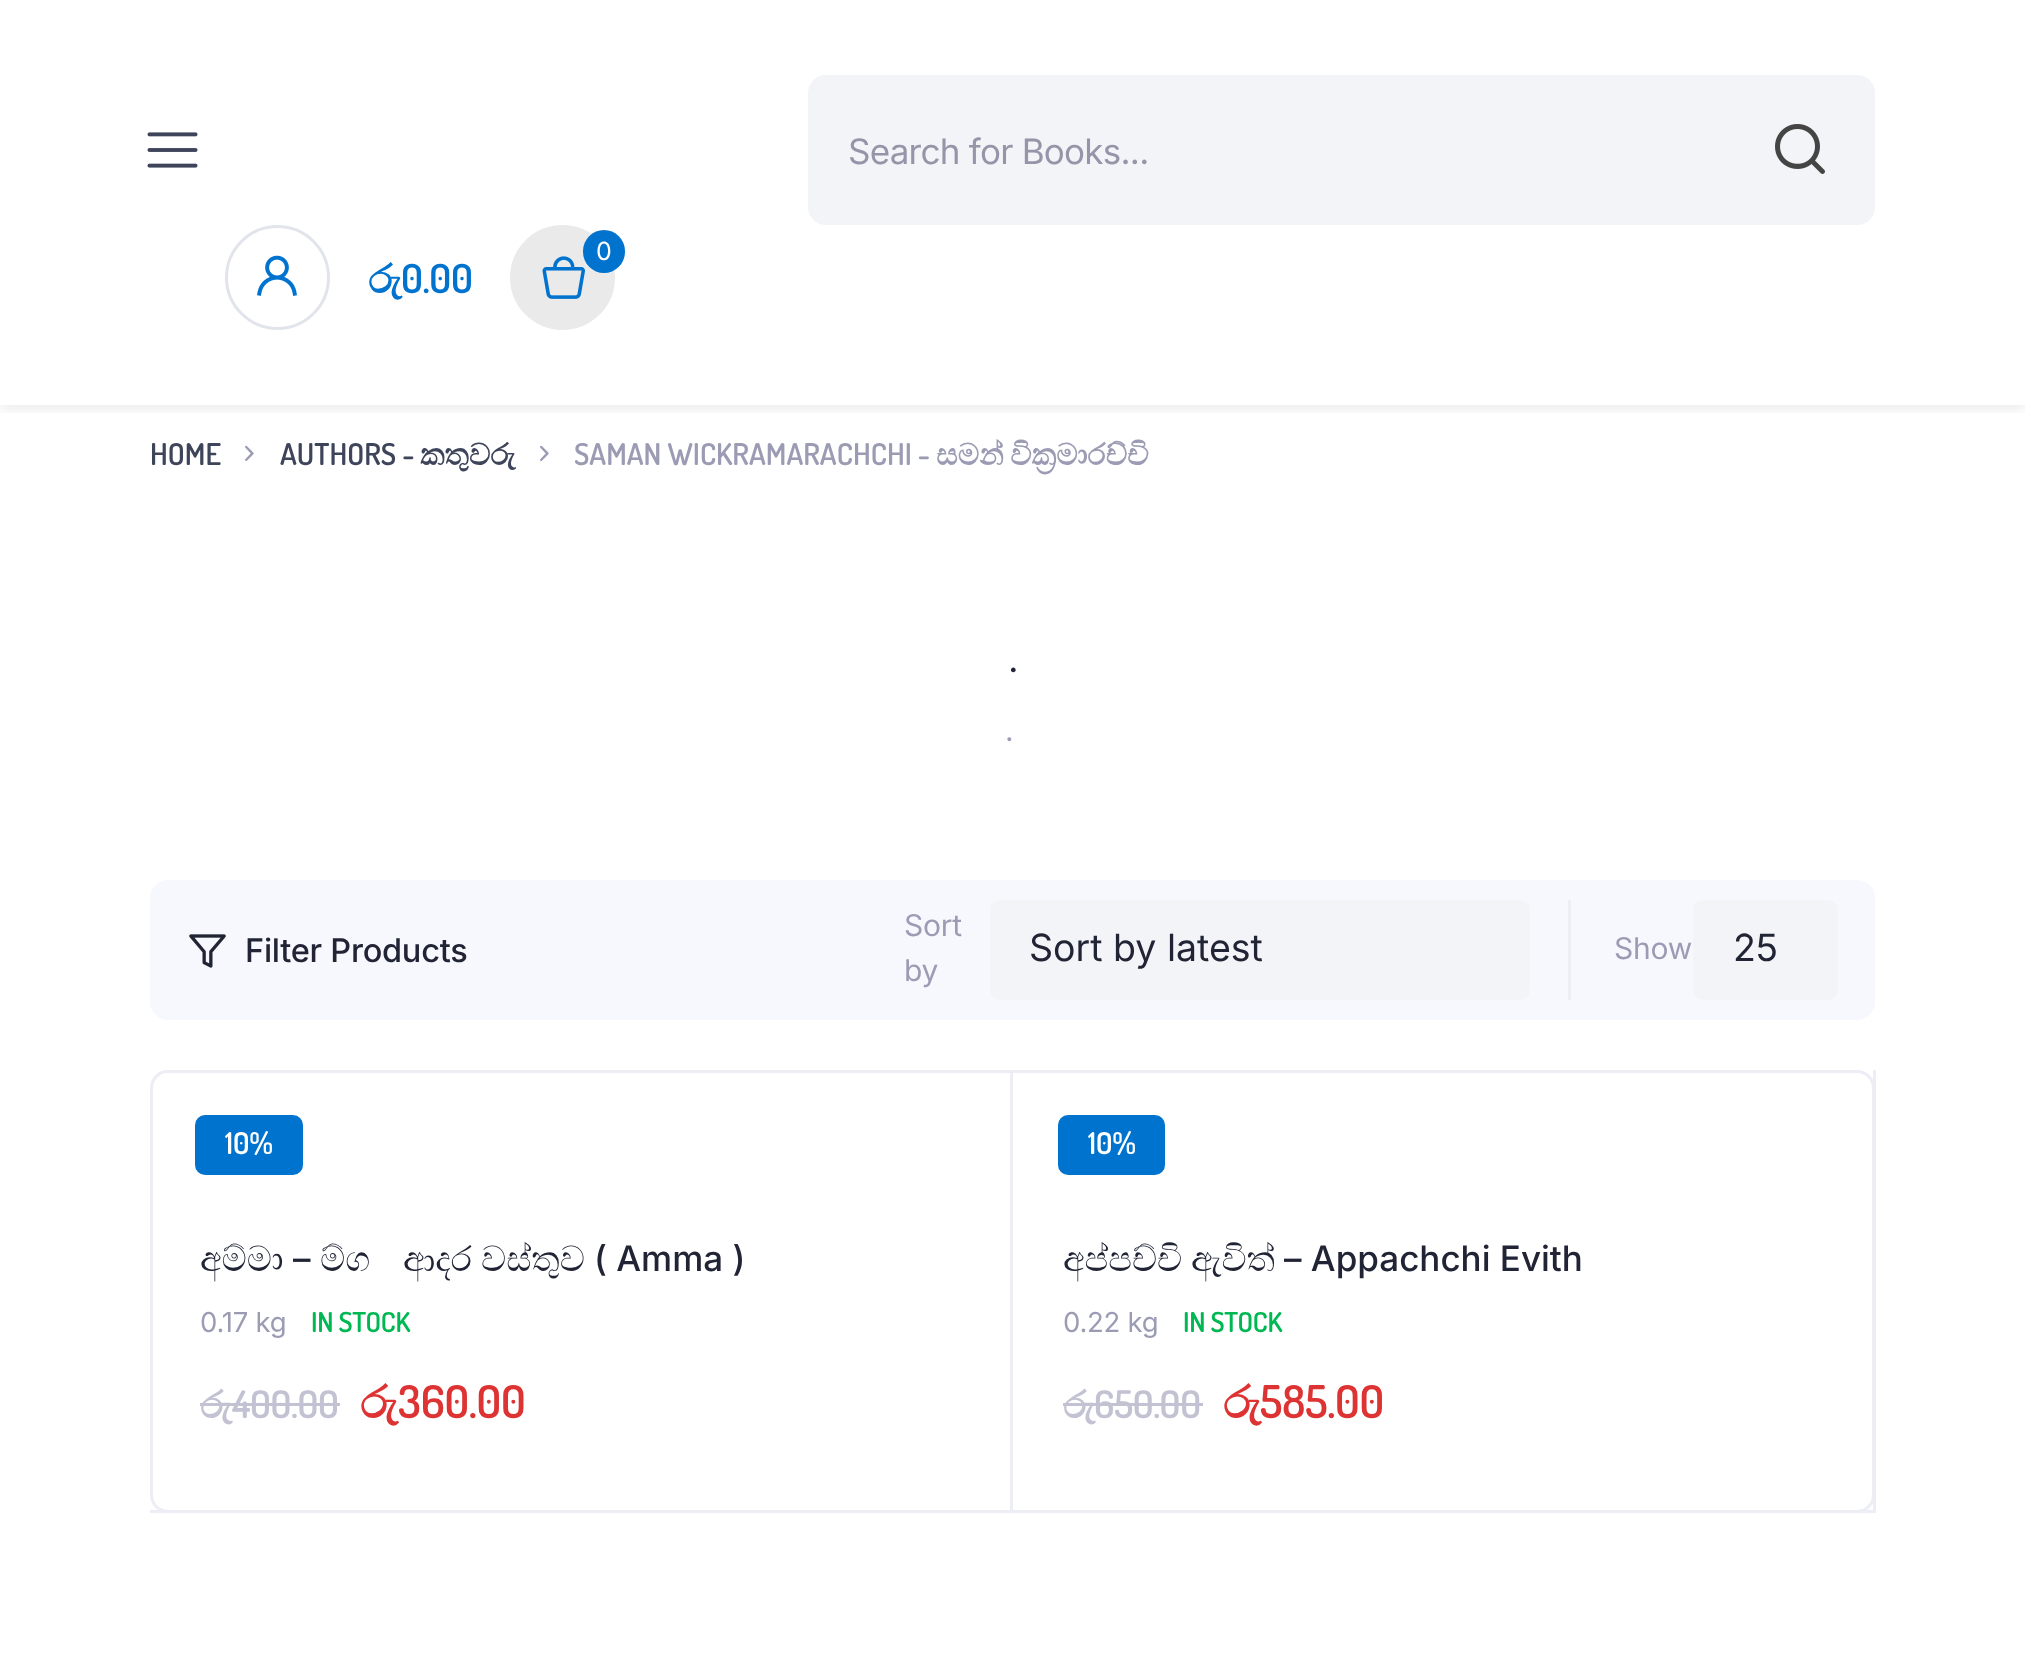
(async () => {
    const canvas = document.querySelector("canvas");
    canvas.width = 2025;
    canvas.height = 1660;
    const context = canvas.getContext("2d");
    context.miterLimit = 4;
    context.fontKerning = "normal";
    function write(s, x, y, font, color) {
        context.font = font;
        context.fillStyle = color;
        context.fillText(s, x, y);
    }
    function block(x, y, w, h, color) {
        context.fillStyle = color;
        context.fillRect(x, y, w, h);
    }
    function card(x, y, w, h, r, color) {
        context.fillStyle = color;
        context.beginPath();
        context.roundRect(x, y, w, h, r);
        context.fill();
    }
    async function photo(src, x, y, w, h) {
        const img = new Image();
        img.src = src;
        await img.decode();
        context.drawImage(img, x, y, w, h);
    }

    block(0, 0, 2025, 1660, "rgb(255, 255, 255)");
    context.save();
    context.beginPath();
    context.rect(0, 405, 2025, 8);
    context.clip();
    context.fillStyle = "rgba(0, 0, 0, 0.07)";
    context.filter = "blur(6px)";
    context.beginPath();
    context.rect(0, 5, 2025, 405);
    context.fill();
    context.filter = "none";
    context.restore();
    await photo("media/1.png", 147, 132, 51, 36);
    card(808, 75, 1067, 150, 18, "rgb(243, 244, 247)");
    context.letterSpacing = "-0.75px";
    write("Search for Books...", 848, 164, "35px Inter", "rgb(149, 149, 169)");
    await photo("media/2.png", 1775, 124, 50, 50);
    context.beginPath();
    context.arc(277.5, 277.5, 51, 0, Math.PI * 2);
    context.strokeStyle = "rgb(226, 228, 236)";
    context.lineWidth = 3;
    context.stroke();
    await photo("media/3.png", 257, 255, 40, 41);
    context.fillStyle = "rgb(234, 234, 234)";
    context.beginPath();
    context.arc(562.5, 277.5, 51, 0, Math.PI * 2);
    context.fill();
    context.strokeStyle = "rgb(234, 234, 234)";
    context.stroke();
    await photo("media/4.png", 542, 256, 43, 43);
    card(583, 230, 42, 43, 21, "rgb(0, 115, 207)");
    context.letterSpacing = "-0.25px";
    write("0", 596, 260, "25px Inter", "rgb(255, 255, 255)");
    write("රු", 368, 293, "bold 40px FreeSerif", "rgb(0, 115, 207)");
    write("0.00", 401, 293, "600 40px Dosis", "rgb(0, 115, 207)");
    context.letterSpacing = "0px";
    write("HOME", 150, 465, "600 30px Dosis", "rgb(62, 68, 90)");
    await photo("media/5.png", 245, 445, 9, 16);
    write("AUTHORS -", 280, 465, "600 30px Dosis", "rgb(62, 68, 90)");
    write("කතුවරු", 420, 465, "bold 30px FreeSerif", "rgb(62, 68, 90)");
    await photo("media/5.png", 540, 445, 9, 16);
    write("SAMAN WICKRAMARACHCHI -", 574, 465, "600 30px Dosis", "rgb(155, 155, 180)");
    write("සමන්", 936, 465, "bold 30px FreeSerif", "rgb(155, 155, 180)");
    write("වික්‍රමාරච්චි", 1010, 465, "bold 30px FreeSerif", "rgb(155, 155, 180)");
    context.letterSpacing = "-2px";
    write(".", 1005, 672, "200 60px Inter", "rgb(32, 36, 53)");
    context.letterSpacing = "-0.25px";
    write(".", 1005, 741, "30px Inter", "rgb(155, 155, 180)");
    card(150, 880, 1725, 140, 18, "rgb(247, 248, 253)");
    await photo("media/6.png", 189, 934, 37, 34);
    write("Filter Products", 245, 962, "500 32.5px Inter", "rgb(32, 36, 53)");
    write("Sort", 904, 936, "30px Inter", "rgb(155, 155, 180)");
    write("by", 904, 981, "30px Inter", "rgb(155, 155, 180)");
    card(990, 900, 540, 100, 10, "rgb(243, 244, 247)");
    context.letterSpacing = "0px";
    write("Sort by latest", 1029, 961, "37.5px Inter", "rgb(32, 36, 53)");
    block(1568, 900, 3, 100, "rgb(237, 238, 245)");
    context.letterSpacing = "-0.25px";
    write("Show", 1614, 959, "30px Inter", "rgb(155, 155, 180)");
    card(1693, 900, 145, 100, 10, "rgb(243, 244, 247)");
    context.letterSpacing = "0px";
    write("25", 1733, 961, "37.5px Inter", "rgb(32, 36, 53)");
    context.beginPath();
    context.roundRect(151.5, 1071.5, 1722, 440, 16.5);
    context.strokeStyle = "rgb(237, 238, 245)";
    context.stroke();
    block(1010, 1070, 3, 443, "rgb(237, 238, 245)");
    block(150, 1510, 16, 3, "rgb(237, 238, 245)");
    card(195, 1115, 108, 60, 10, "rgb(0, 115, 207)");
    write("10%", 225, 1154, "600 30px Dosis", "rgb(255, 255, 255)");
    context.save();
    context.beginPath();
    context.rect(200, 1233, 760, 50);
    context.clip();
    write("අම්මා", 200, 1271, "35px FreeSerif", "rgb(32, 36, 53)");
    context.restore();
    write("–", 293, 1271, "500 35px Inter", "rgb(32, 36, 53)");
    write("මගේ", 320, 1271, "35px FreeSerif", "rgb(32, 36, 53)");
    write("ආදර", 403, 1271, "35px FreeSerif", "rgb(32, 36, 53)");
    write("වස්තුව", 481, 1271, "35px FreeSerif", "rgb(32, 36, 53)");
    write("( Amma )", 594, 1271, "500 35px Inter", "rgb(32, 36, 53)");
    context.letterSpacing = "-0.25px";
    write("0.17 kg", 200, 1332, "27.5px Inter", "rgb(155, 155, 180)");
    write("IN STOCK", 311, 1332, "600 27.5px Dosis", "rgb(0, 184, 83)");
    write("රු", 200, 1418, "bold 38px FreeSerif", "rgb(194, 194, 211)");
    block(200, 1403, 33, 3, "rgb(194, 194, 211)");
    write("400.00", 232, 1418, "600 38px Dosis", "rgb(194, 194, 211)");
    block(233, 1403, 107, 3, "rgb(194, 194, 211)");
    write("රු", 360, 1418, "bold 45px FreeSerif", "rgb(221, 51, 51)");
    write("360.00", 398, 1418, "600 45px Dosis", "rgb(221, 51, 51)");
    block(1873, 1070, 3, 443, "rgb(237, 238, 245)");
    block(1859, 1510, 16, 3, "rgb(237, 238, 245)");
    card(1058, 1115, 107, 60, 10, "rgb(0, 115, 207)");
    context.letterSpacing = "0px";
    write("10%", 1088, 1154, "600 30px Dosis", "rgb(255, 255, 255)");
    write("අප්පච්චි", 1063, 1271, "35px FreeSerif", "rgb(32, 36, 53)");
    write("ඇවිත්", 1191, 1271, "35px FreeSerif", "rgb(32, 36, 53)");
    write("– Appachchi Evith", 1284, 1271, "500 35px Inter", "rgb(32, 36, 53)");
    context.letterSpacing = "-0.25px";
    write("0.22 kg", 1063, 1332, "27.5px Inter", "rgb(155, 155, 180)");
    write("IN STOCK", 1183, 1332, "600 27.5px Dosis", "rgb(0, 184, 83)");
    write("රු", 1063, 1418, "bold 38px FreeSerif", "rgb(194, 194, 211)");
    write("650.00", 1094, 1418, "600 38px Dosis", "rgb(194, 194, 211)");
    block(1063, 1403, 32, 3, "rgb(194, 194, 211)");
    block(1095, 1403, 108, 3, "rgb(194, 194, 211)");
    write("රු", 1223, 1418, "bold 45px FreeSerif", "rgb(221, 51, 51)");
    write("585.00", 1260, 1418, "600 45px Dosis", "rgb(221, 51, 51)");
})();
